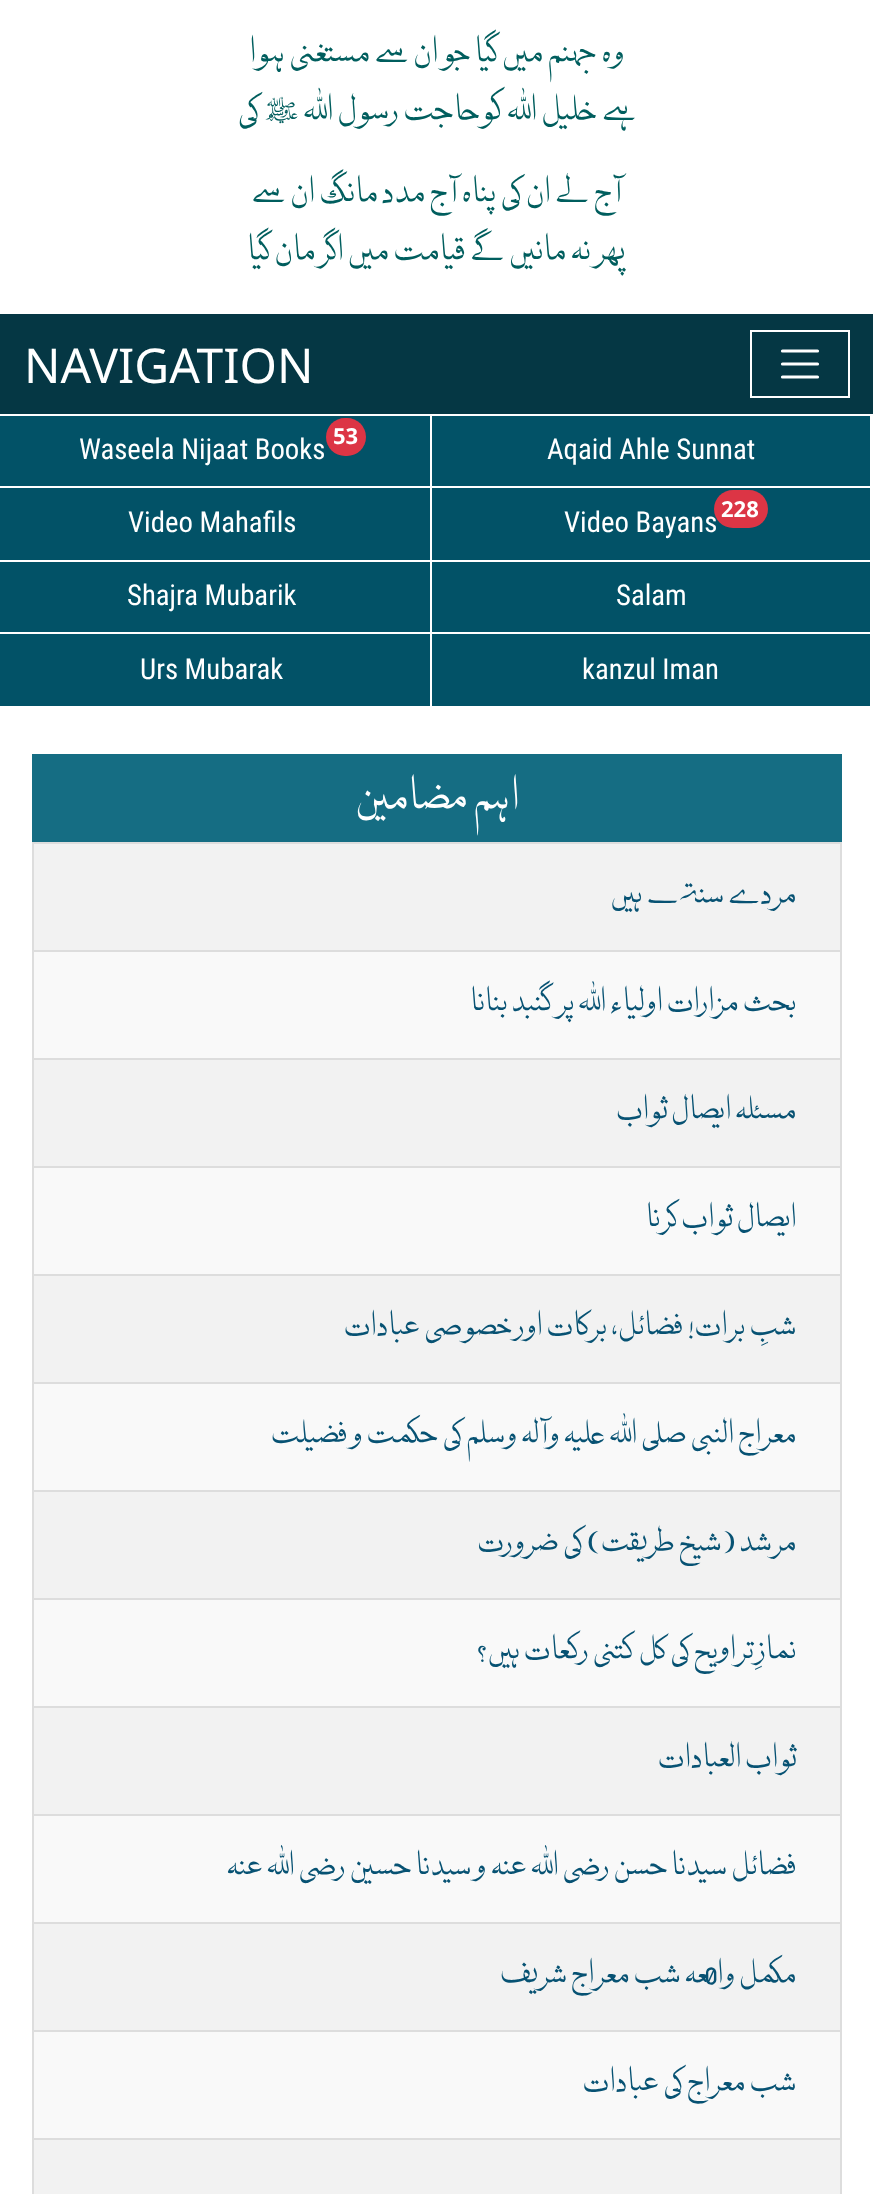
(async () => {
    const canvas = document.querySelector("canvas");
    canvas.width = 873;
    canvas.height = 2194;
    const context = canvas.getContext("2d");
    context.miterLimit = 4;
    context.fontKerning = "normal";
    function write(s, x, y, font, color) {
        context.font = font;
        context.fillStyle = color;
        context.fillText(s, x, y);
    }
    function block(x, y, w, h, color) {
        context.fillStyle = color;
        context.fillRect(x, y, w, h);
    }
    function card(x, y, w, h, r, color) {
        context.fillStyle = color;
        context.beginPath();
        context.roundRect(x, y, w, h, r);
        context.fill();
    }

    block(0, 0, 873, 2194, "rgb(255, 255, 255)");
    context.direction = "rtl";
    write("وہ جہنم میں گیا جو ان سے مستغنی ہوا", 625, 61, "28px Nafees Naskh", "rgb(0, 94, 94)");
    write("ہے خلیل اللہ کوحاجت رسول اللہ ﷺ کی", 637, 119, "28px Nafees Naskh", "rgb(0, 94, 94)");
    write("آج لے ان کی پناہ آج مدد مانگ ان سے", 622, 201, "28px Nafees Naskh", "rgb(0, 94, 94)");
    write("پھر نہ مانیں گے قیامت میں اگر مان گیا", 626, 259, "28px Nafees Naskh", "rgb(0, 94, 94)");
    block(0, 314, 873, 100, "rgb(5, 55, 68)");
    context.strokeStyle = "rgb(255, 255, 255)";
    context.lineWidth = 2;
    context.strokeRect(751, 331, 98, 66);
    context.beginPath();
    context.moveTo(782.5, 351);
    context.lineTo(817.5, 351);
    context.moveTo(782.5, 364);
    context.lineTo(817.5, 364);
    context.moveTo(782.5, 377);
    context.lineTo(817.5, 377);
    context.lineWidth = 3.2;
    context.lineCap = "round";
    context.stroke();
    context.direction = "ltr";
    write("NAVIGATION", 24, 383, "48px Noto Sans", "rgb(255, 255, 255)");
    block(432, 416, 438, 70, "rgb(2, 82, 103)");
    write("Aqaid Ahle Sunnat", 547, 459, "28.75px Roboto Condensed", "rgb(255, 255, 255)");
    block(0, 416, 430, 70, "rgb(2, 82, 103)");
    card(326, 418, 40, 38, 19, "rgb(220, 53, 69)");
    write("53", 333, 444, "bold 22px Noto Sans", "rgb(255, 255, 255)");
    write("Waseela Nijaat Books", 79, 459, "28.75px Roboto Condensed", "rgb(255, 255, 255)");
    block(432, 488, 438, 72, "rgb(2, 82, 103)");
    write("Video Bayans", 564, 532, "28.75px Roboto Condensed", "rgb(255, 255, 255)");
    card(714, 490, 54, 38, 19, "rgb(220, 53, 69)");
    write("228", 721, 517, "bold 22px Noto Sans", "rgb(255, 255, 255)");
    block(0, 488, 430, 72, "rgb(2, 82, 103)");
    write("Video Mahafils", 128, 532, "28.75px Roboto Condensed", "rgb(255, 255, 255)");
    block(432, 562, 438, 70, "rgb(2, 82, 103)");
    write("Salam", 616, 605, "28.75px Roboto Condensed", "rgb(255, 255, 255)");
    block(0, 562, 430, 70, "rgb(2, 82, 103)");
    write("Shajra Mubarik", 127, 605, "28.75px Roboto Condensed", "rgb(255, 255, 255)");
    block(432, 634, 438, 72, "rgb(2, 82, 103)");
    write("kanzul Iman", 582, 679, "28.75px Roboto Condensed", "rgb(255, 255, 255)");
    block(0, 634, 430, 72, "rgb(2, 82, 103)");
    write("Urs Mubarak", 140, 679, "28.75px Roboto Condensed", "rgb(255, 255, 255)");
    block(32, 754, 810, 88, "rgb(21, 109, 131)");
    context.direction = "rtl";
    write("اہم مضامین", 520, 808, "36px Nafees Naskh", "rgb(255, 255, 255)");
    context.fillStyle = "rgb(242, 242, 242)";
    context.beginPath();
    context.rect(33, 843, 808, 108);
    context.fill();
    context.strokeStyle = "rgb(221, 221, 221)";
    context.lineWidth = 2;
    context.stroke();
    write("مردے سنتے ہیں", 797, 902, "26px Nafees Naskh", "rgb(7, 82, 115)");
    context.fillStyle = "rgb(249, 249, 249)";
    context.beginPath();
    context.rect(33, 951, 808, 108);
    context.fill();
    context.stroke();
    write("بحث مزارات اولیاء اللہ پر گنبد بنانا", 797, 1010, "26px Nafees Naskh", "rgb(7, 82, 115)");
    context.fillStyle = "rgb(242, 242, 242)";
    context.beginPath();
    context.rect(33, 1059, 808, 108);
    context.fill();
    context.stroke();
    write("مسئلہ ایصال ثواب", 797, 1118, "26px Nafees Naskh", "rgb(7, 82, 115)");
    context.fillStyle = "rgb(249, 249, 249)";
    context.beginPath();
    context.rect(33, 1167, 808, 108);
    context.fill();
    context.stroke();
    write("ایصال ثواب کرنا", 797, 1226, "26px Nafees Naskh", "rgb(7, 82, 115)");
    context.fillStyle = "rgb(242, 242, 242)";
    context.beginPath();
    context.rect(33, 1275, 808, 108);
    context.fill();
    context.stroke();
    write("شبِ برات! فضائل، برکات اور خصوصی عبادات", 797, 1334, "26px Nafees Naskh", "rgb(7, 82, 115)");
    context.fillStyle = "rgb(249, 249, 249)";
    context.beginPath();
    context.rect(33, 1383, 808, 108);
    context.fill();
    context.stroke();
    write("معراج النبی صلی اللہ علیہ وآلہ وسلم کی حکمت و فضیلت", 797, 1442, "26px Nafees Naskh", "rgb(7, 82, 115)");
    context.fillStyle = "rgb(242, 242, 242)";
    context.beginPath();
    context.rect(33, 1491, 808, 108);
    context.fill();
    context.stroke();
    write("مرشد (شیخ طریقت) کی ضرورت", 797, 1550, "26px Nafees Naskh", "rgb(7, 82, 115)");
    context.fillStyle = "rgb(249, 249, 249)";
    context.beginPath();
    context.rect(33, 1599, 808, 108);
    context.fill();
    context.stroke();
    write("نمازِ تراویح کی کل کتنی رکعات ہیں؟", 797, 1658, "26px Nafees Naskh", "rgb(7, 82, 115)");
    context.fillStyle = "rgb(242, 242, 242)";
    context.beginPath();
    context.rect(33, 1707, 808, 108);
    context.fill();
    context.stroke();
    write("ثواب العبادات", 797, 1766, "26px Nafees Naskh", "rgb(7, 82, 115)");
    context.fillStyle = "rgb(249, 249, 249)";
    context.beginPath();
    context.rect(33, 1815, 808, 108);
    context.fill();
    context.stroke();
    write("فضائل سیدنا حسن رضی اللہ عنہ", 797, 1874, "26px Nafees Naskh", "rgb(7, 82, 115)");
    write("و سیدنا حسین", 487, 1874, "26px Nafees Naskh", "rgb(7, 82, 115)");
    write("رضی اللہ عنہ", 346, 1874, "26px Nafees Naskh", "rgb(7, 82, 115)");
    context.fillStyle = "rgb(242, 242, 242)";
    context.beginPath();
    context.rect(33, 1923, 808, 108);
    context.fill();
    context.stroke();
    write("مکمل واقعہ شب معراج شریف", 797, 1982, "26px Nafees Naskh", "rgb(7, 82, 115)");
    context.fillStyle = "rgb(249, 249, 249)";
    context.beginPath();
    context.rect(33, 2031, 808, 108);
    context.fill();
    context.stroke();
    write("شب معراج کی عبادات", 797, 2090, "26px Nafees Naskh", "rgb(7, 82, 115)");
    context.fillStyle = "rgb(242, 242, 242)";
    context.beginPath();
    context.rect(33, 2139, 808, 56);
    context.fill();
    context.stroke();
})();
